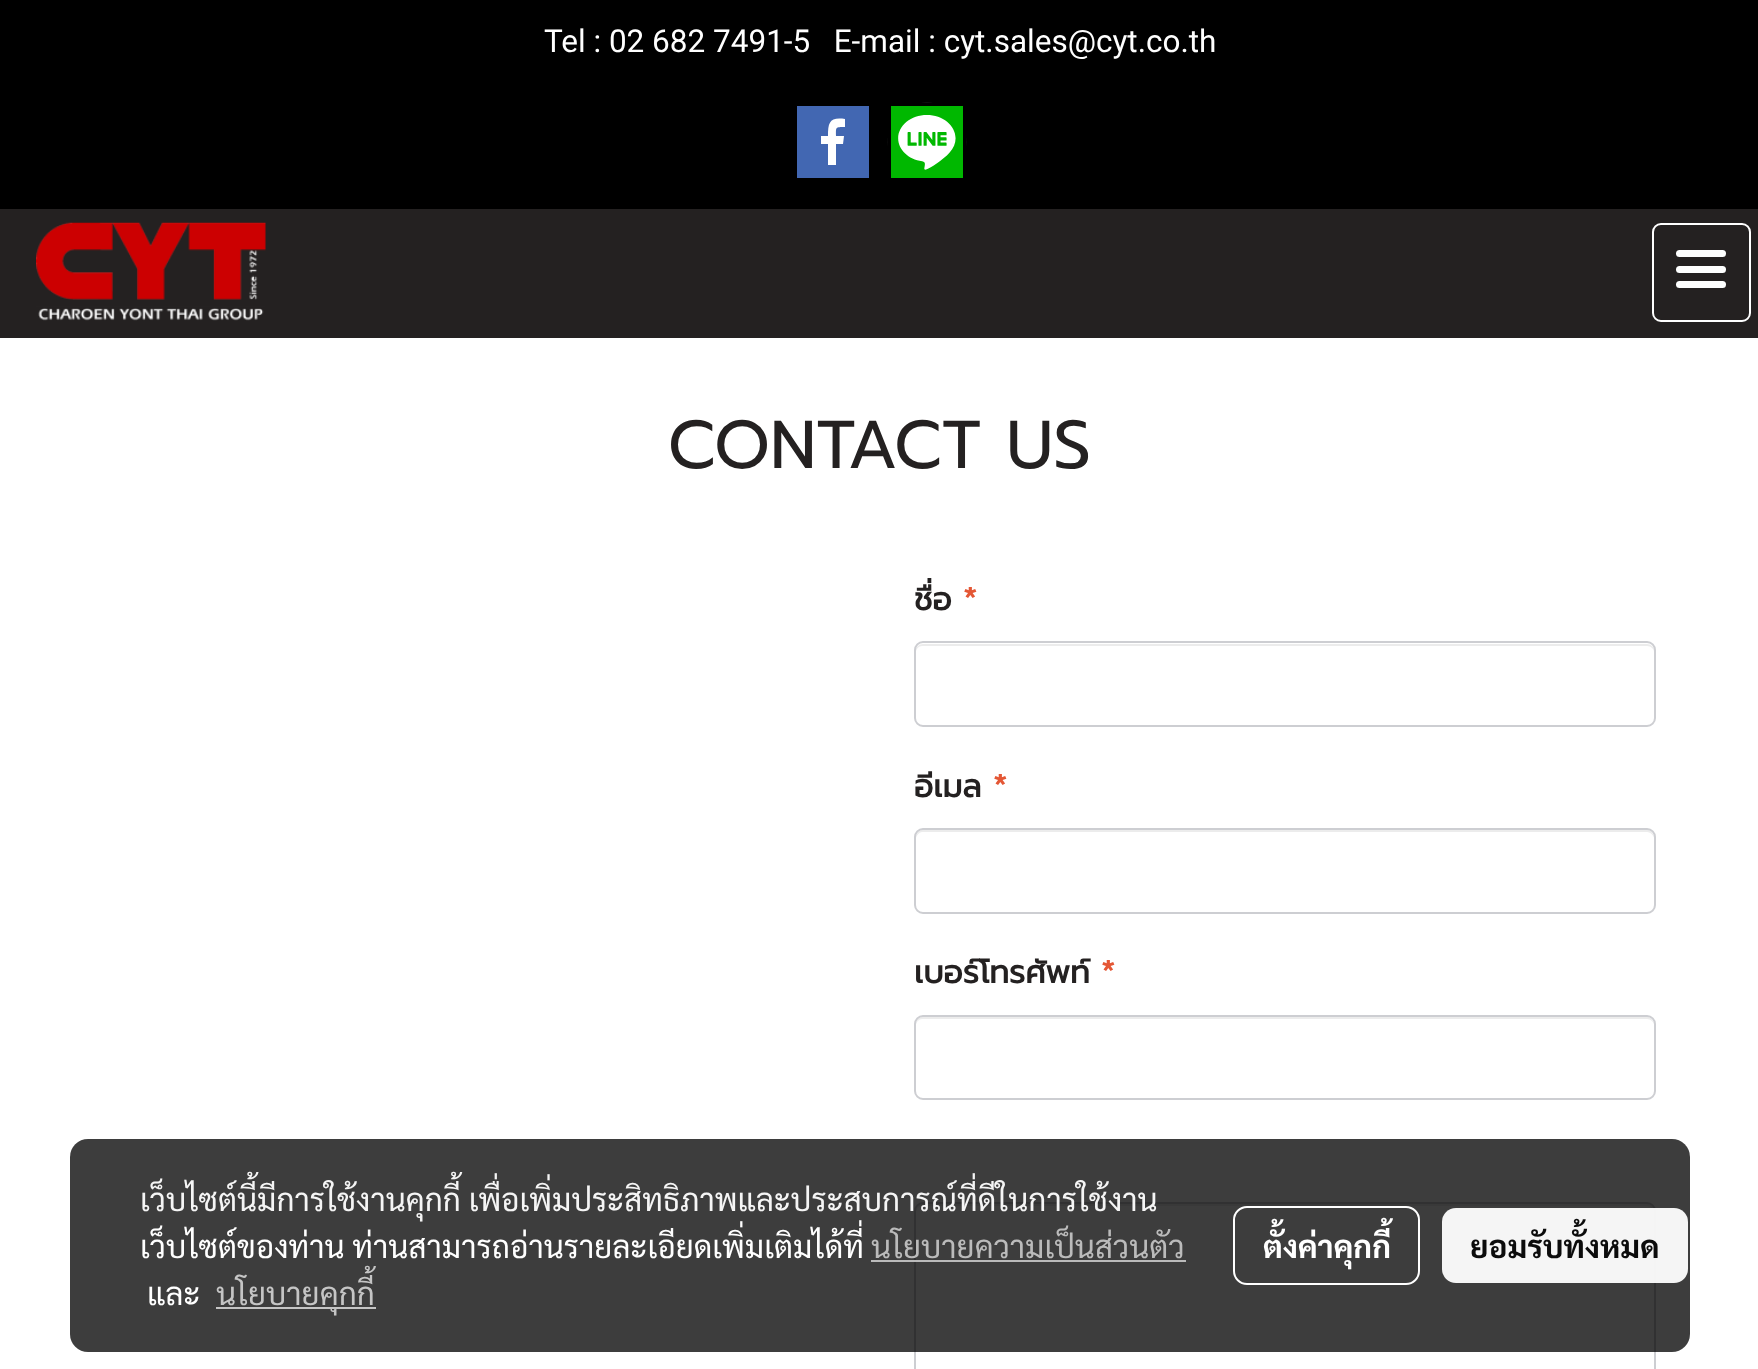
(async () => {
    const canvas = document.querySelector("canvas");
    canvas.width = 1758;
    canvas.height = 1369;
    const context = canvas.getContext("2d");
    context.miterLimit = 4;
    context.fontKerning = "normal";
    function write(s, x, y, font, color) {
        context.font = font;
        context.fillStyle = color;
        context.fillText(s, x, y);
    }
    function block(x, y, w, h, color) {
        context.fillStyle = color;
        context.fillRect(x, y, w, h);
    }
    function card(x, y, w, h, r, color) {
        context.fillStyle = color;
        context.beginPath();
        context.roundRect(x, y, w, h, r);
        context.fill();
    }
    async function photo(src, x, y, w, h) {
        const img = new Image();
        img.src = src;
        await img.decode();
        context.drawImage(img, x, y, w, h);
    }

    block(0, 0, 1758, 1369, "rgb(255, 255, 255)");
    block(0, 209, 1758, 129, "rgb(36, 33, 33)");
    block(0, 0, 1758, 209, "rgb(0, 0, 0)");
    write("Tel : 02 682 7491-5   E-mail : cyt.sales@cyt.co.th", 544, 52, "31.5px Roboto", "rgb(255, 255, 255)");
    block(797, 106, 72, 72, "rgb(66, 103, 178)");
    context.fillStyle = "rgb(255, 255, 255)";
    context.beginPath();
    context.moveTo(828, 165);
    context.lineTo(828, 144);
    context.lineTo(821, 144);
    context.lineTo(821, 136);
    context.lineTo(828, 136);
    context.bezierCurveTo(828, 122, 830, 117, 845, 119);
    context.lineTo(845, 127);
    context.bezierCurveTo(835, 127, 836, 127, 836, 136);
    context.lineTo(844, 136);
    context.lineTo(843, 144);
    context.lineTo(836, 144);
    context.lineTo(836, 165);
    context.fill();
    block(891, 106, 72, 72, "rgb(0, 184, 0)");
    await photo("media/1.png", 887, 102, 80, 68);
    await photo("media/2.png", 36, 222, 230, 99);
    context.beginPath();
    context.roundRect(1653, 224, 97, 97, 8);
    context.strokeStyle = "rgb(255, 255, 255)";
    context.lineWidth = 2;
    context.stroke();
    card(1676, 266, 50, 7, 3.5, "rgb(254, 255, 255)");
    card(1676, 250, 50, 7, 3.5, "rgb(254, 255, 255)");
    card(1676, 281, 50, 7, 3.5, "rgb(254, 255, 255)");
    write("CONTACT US", 668, 468, "67.5px Prompt", "rgb(36, 33, 33)");
    write("ชื่อ", 914, 610, "bold 31.5px Prompt", "rgb(36, 33, 33)");
    write("*", 963, 610, "bold 31.5px Prompt", "rgb(228, 87, 53)");
    context.fillStyle = "rgb(236, 236, 236)";
    context.beginPath();
    context.moveTo(922, 646);
    context.lineTo(1647, 646);
    context.bezierCurveTo(1651, 646, 1654, 649, 1654, 652);
    context.lineTo(1654, 651);
    context.bezierCurveTo(1654, 647, 1651, 644, 1647, 644);
    context.lineTo(923, 644);
    context.bezierCurveTo(919, 644, 916, 647, 916, 651);
    context.lineTo(916, 652);
    context.bezierCurveTo(916, 649, 919, 646, 922, 646);
    context.closePath();
    context.fill();
    context.beginPath();
    context.roundRect(915, 642, 740, 84, 8);
    context.strokeStyle = "rgb(205, 206, 210)";
    context.stroke();
    write("อีเมล", 914, 797, "bold 31.5px Prompt", "rgb(36, 33, 33)");
    write("*", 993, 797, "bold 31.5px Prompt", "rgb(228, 87, 53)");
    context.fillStyle = "rgb(236, 236, 236)";
    context.beginPath();
    context.moveTo(922, 832);
    context.lineTo(1647, 832);
    context.bezierCurveTo(1651, 832, 1654, 836, 1654, 839);
    context.bezierCurveTo(1654, 835, 1652, 830, 1647, 830);
    context.lineTo(923, 830);
    context.bezierCurveTo(918, 830, 916, 835, 916, 839);
    context.bezierCurveTo(916, 836, 919, 832, 922, 832);
    context.closePath();
    context.fill();
    context.beginPath();
    context.roundRect(915, 829, 740, 84, 8);
    context.stroke();
    write("เบอร์โทรศัพท์", 914, 983, "bold 31.5px Prompt", "rgb(36, 33, 33)");
    write("*", 1101, 983, "bold 31.5px Prompt", "rgb(228, 87, 53)");
    context.fillStyle = "rgb(236, 236, 236)";
    context.beginPath();
    context.moveTo(922, 1019);
    context.lineTo(1647, 1019);
    context.bezierCurveTo(1651, 1019, 1654, 1022, 1654, 1026);
    context.bezierCurveTo(1654, 1022, 1652, 1017, 1647, 1017);
    context.lineTo(923, 1017);
    context.bezierCurveTo(918, 1017, 916, 1022, 916, 1026);
    context.bezierCurveTo(916, 1022, 919, 1019, 922, 1019);
    context.closePath();
    context.fill();
    context.beginPath();
    context.roundRect(915, 1016, 740, 83, 8);
    context.stroke();
    context.beginPath();
    context.moveTo(922, 1206);
    context.lineTo(1647, 1206);
    context.bezierCurveTo(1651, 1206, 1654, 1209, 1654, 1213);
    context.bezierCurveTo(1654, 1209, 1652, 1204, 1647, 1204);
    context.lineTo(923, 1204);
    context.bezierCurveTo(918, 1204, 916, 1209, 916, 1213);
    context.bezierCurveTo(916, 1209, 919, 1206, 922, 1206);
    context.closePath();
    context.fill();
    context.beginPath();
    context.roundRect(915, 1203, 740, 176, 8);
    context.stroke();
    card(70, 1139, 1620, 213, 18, "rgba(0, 0, 0, 0.76)");
    write("เว็บไซต์นี้มีการใช้งานคุกกี้ เพื่อเพิ่มประสิทธิภาพและประสบการณ์ที่ดีในการใช้งาน", 140, 1211, "31.5px Sarabun", "rgb(245, 245, 245)");
    write("เว็บไซต์ของท่าน ท่านสามารถอ่านรายละเอียดเพิ่มเติมได้ที่", 140, 1258, "31.5px Sarabun", "rgb(255, 255, 255)");
    write("นโยบายความเป็นส่วนตัว", 871, 1258, "31.5px Sarabun", "rgb(187, 187, 187)");
    block(871, 1260, 315, 2, "rgba(194, 194, 194, 0.95)");
    write("และ", 147, 1305, "31.5px Sarabun", "rgb(255, 255, 255)");
    block(216, 1307, 160, 2, "rgb(197, 197, 197)");
    write("นโยบายคุกกี้", 216, 1305, "31.5px Sarabun", "rgb(197, 197, 197)");
    context.beginPath();
    context.roundRect(1234, 1207, 185, 77, 13);
    context.strokeStyle = "rgb(255, 255, 255)";
    context.stroke();
    write("ตั้งค่าคุกกี้", 1263, 1258, "bold 31.5px Sarabun", "rgb(255, 255, 255)");
    card(1442, 1208, 246, 75, 14, "rgba(255, 255, 255, 0.95)");
    write("ยอมรับทั้งหมด", 1470, 1258, "bold 31.5px Sarabun", "rgb(12, 12, 12)");
})();
